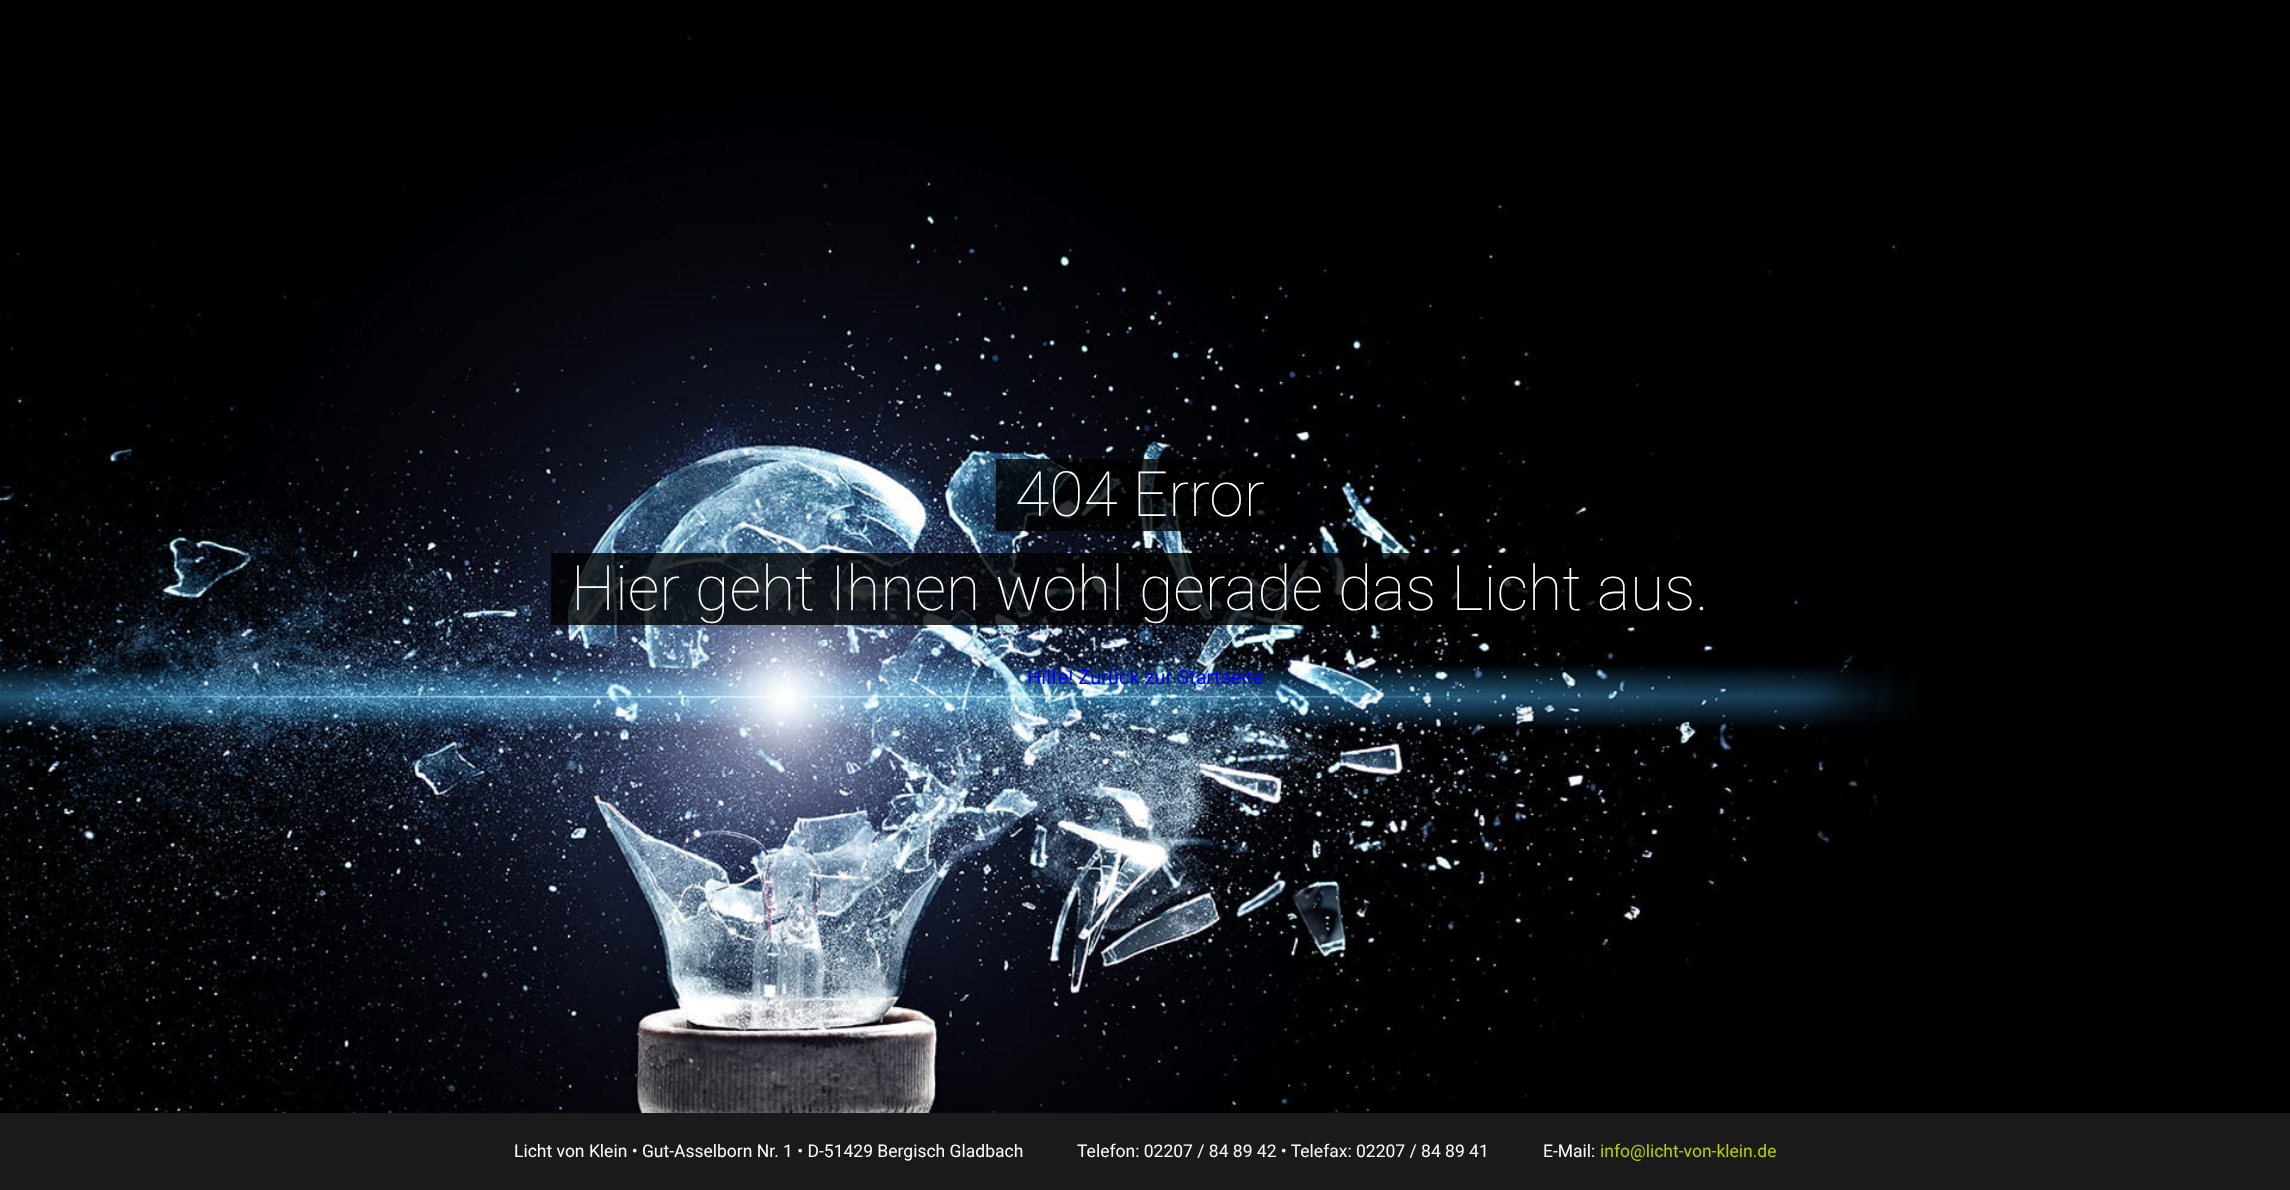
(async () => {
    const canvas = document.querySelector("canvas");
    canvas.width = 2290;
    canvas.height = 1190;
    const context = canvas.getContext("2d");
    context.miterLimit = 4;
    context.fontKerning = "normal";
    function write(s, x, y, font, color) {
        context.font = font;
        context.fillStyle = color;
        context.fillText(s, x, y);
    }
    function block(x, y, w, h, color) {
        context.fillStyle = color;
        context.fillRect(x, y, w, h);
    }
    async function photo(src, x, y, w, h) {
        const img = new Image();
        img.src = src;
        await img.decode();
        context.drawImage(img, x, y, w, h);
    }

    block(0, 0, 2290, 1190, "rgb(255, 255, 255)");
    await photo("media/1.png", 0, 0, 2290, 1113);
    block(996, 459, 298, 72, "rgba(0, 0, 0, 0.8)");
    write("404 Error", 1015, 516, "100 62.5px Roboto", "rgb(255, 255, 255)");
    block(551, 553, 1147, 72, "rgba(0, 0, 0, 0.8)");
    write("Hier geht Ihnen wohl gerade das Licht aus.", 571, 610, "100 62.5px Roboto", "rgb(255, 255, 255)");
    write("Hilfe! Zurück zur Startseite", 1027, 684, "20px Roboto", "rgb(0, 0, 238)");
    block(0, 1113, 2290, 77, "rgb(26, 26, 26)");
    write("Licht von Klein • Gut-Asselborn Nr. 1 • D-51429 Bergisch Gladbach", 514, 1157, "17.5px Roboto", "rgb(255, 255, 255)");
    write("Telefon: 02207 / 84 89 42 • Telefax: 02207 / 84 89 41", 1077, 1157, "17.5px Roboto", "rgb(255, 255, 255)");
    write("E-Mail:", 1543, 1157, "17.5px Roboto", "rgb(255, 255, 255)");
    write("info@licht-von-klein.de", 1600, 1157, "17.5px Roboto", "rgb(189, 205, 0)");
})();
